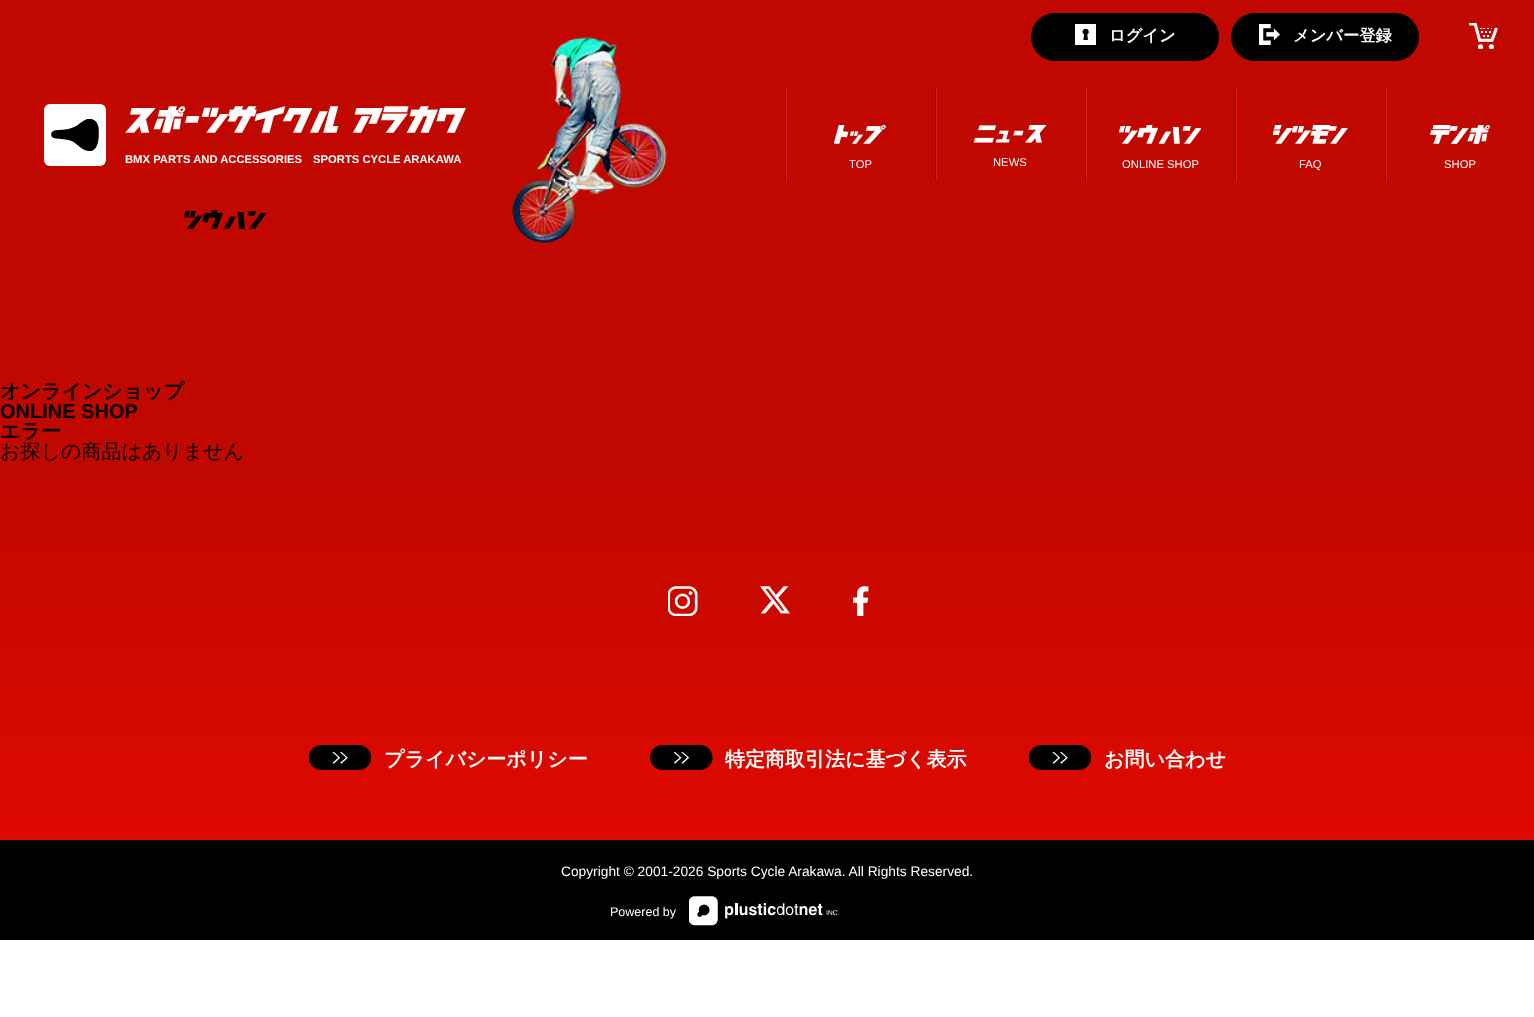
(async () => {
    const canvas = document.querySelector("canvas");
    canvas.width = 1534;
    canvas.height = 1017;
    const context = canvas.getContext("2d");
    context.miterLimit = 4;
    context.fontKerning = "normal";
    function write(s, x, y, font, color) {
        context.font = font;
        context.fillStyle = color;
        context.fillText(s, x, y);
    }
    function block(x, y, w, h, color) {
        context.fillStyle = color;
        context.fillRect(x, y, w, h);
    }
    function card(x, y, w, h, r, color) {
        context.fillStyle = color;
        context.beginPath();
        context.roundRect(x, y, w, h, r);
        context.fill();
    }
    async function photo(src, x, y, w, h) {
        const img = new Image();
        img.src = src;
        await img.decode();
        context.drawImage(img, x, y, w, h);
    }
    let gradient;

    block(0, 0, 1534, 1017, "rgb(255, 255, 255)");
    gradient = context.createLinearGradient(768, 940, 768, 0);
    gradient.addColorStop(0, "rgb(231, 10, 0)");
    gradient.addColorStop(0.5, "rgb(192, 8, 0)");
    context.fillStyle = gradient;
    context.fillRect(0, 0, 1534, 840);
    card(44, 104, 62, 62, 6, "rgb(255, 255, 255)");
    await photo("media/1.png", 51, 119, 48, 32);
    await photo("media/2.png", 125, 106, 341, 27);
    write("BMX PARTS AND ACCESSORIES", 125, 163, "bold 11.25px Liberation Sans", "rgb(255, 255, 255)");
    write("SPORTS CYCLE ARAKAWA", 313, 163, "bold 11.25px Liberation Sans", "rgb(255, 255, 255)");
    await photo("media/3.png", 512, 37, 155, 206);
    card(1031, 13, 188, 48, 24, "rgb(0, 0, 0)");
    await photo("media/4.png", 1075, 24, 21, 21);
    write("ログイン", 1109, 41, "bold 16.25px WenQuanYi Zen Hei", "rgb(255, 255, 255)");
    card(1231, 13, 188, 48, 24, "rgb(0, 0, 0)");
    await photo("media/5.png", 1259, 24, 21, 21);
    write("メンバー登録", 1293, 41, "bold 16.25px WenQuanYi Zen Hei", "rgb(255, 255, 255)");
    await photo("media/6.png", 1469, 23, 29, 26);
    block(785, 88, 1, 93, "rgb(123, 3, 0)");
    block(786, 88, 1, 93, "rgb(255, 13, 0)");
    await photo("media/7.png", 834, 125, 52, 19);
    write("TOP", 849, 168, "11.25px Liberation Sans", "rgb(255, 255, 255)");
    block(935, 88, 1, 93, "rgb(123, 3, 0)");
    block(936, 88, 1, 93, "rgb(255, 13, 0)");
    await photo("media/8.png", 974, 125, 72, 18);
    write("NEWS", 993, 166, "11.25px Liberation Sans", "rgb(255, 255, 255)");
    block(1085, 88, 1, 93, "rgb(123, 3, 0)");
    block(1086, 88, 1, 93, "rgb(255, 13, 0)");
    await photo("media/9.png", 1119, 125, 82, 19);
    write("ONLINE SHOP", 1122, 168, "11.25px Liberation Sans", "rgb(255, 255, 255)");
    block(1235, 88, 1, 93, "rgb(123, 3, 0)");
    block(1236, 88, 1, 93, "rgb(255, 13, 0)");
    await photo("media/10.png", 1273, 125, 75, 19);
    write("FAQ", 1299, 168, "11.25px Liberation Sans", "rgb(255, 255, 255)");
    block(1385, 88, 1, 93, "rgb(123, 3, 0)");
    block(1386, 88, 1, 93, "rgb(255, 13, 0)");
    await photo("media/11.png", 1430, 125, 60, 19);
    write("SHOP", 1444, 168, "11.25px Liberation Sans", "rgb(255, 255, 255)");
    await photo("media/12.png", 184, 210, 83, 19);
    write("オンラインショップ", 0, 398, "bold 20px WenQuanYi Zen Hei", "rgb(0, 0, 0)");
    write("ONLINE SHOP", 0, 418, "bold 20px Liberation Sans", "rgb(0, 0, 0)");
    write("エラー", 0, 438, "bold 20px WenQuanYi Zen Hei", "rgb(0, 0, 0)");
    write("お探しの商品はありません", 0, 458, "500 20px WenQuanYi Zen Hei", "rgb(0, 0, 0)");
    await photo("media/13.png", 668, 586, 30, 30);
    await photo("media/14.png", 760, 586, 30, 28);
    await photo("media/15.png", 853, 586, 16, 30);
    block(332, 751, 16, 13, "rgb(255, 255, 255)");
    await photo("media/16.png", 309, 745, 62, 25);
    write("プライバシーポリシー", 384, 766, "bold 20px WenQuanYi Zen Hei", "rgb(255, 255, 255)");
    block(673, 751, 17, 13, "rgb(255, 255, 255)");
    await photo("media/17.png", 650, 745, 63, 25);
    write("特定商取引法に基づく表示", 725, 766, "bold 20px WenQuanYi Zen Hei", "rgb(255, 255, 255)");
    block(1052, 751, 16, 13, "rgb(255, 255, 255)");
    await photo("media/16.png", 1029, 745, 62, 25);
    write("お問い合わせ", 1104, 766, "bold 20px WenQuanYi Zen Hei", "rgb(255, 255, 255)");
    block(0, 840, 1534, 100, "rgb(0, 0, 0)");
    write("Copyright © 2001-2026 Sports Cycle Arakawa. All Rights Reserved.", 561, 876, "13.75px Liberation Sans", "rgb(255, 255, 255)");
    write("Powered by", 610, 916, "12.5px Liberation Sans", "rgb(255, 255, 255)");
    await photo("media/18.png", 689, 896, 150, 30);
})();
